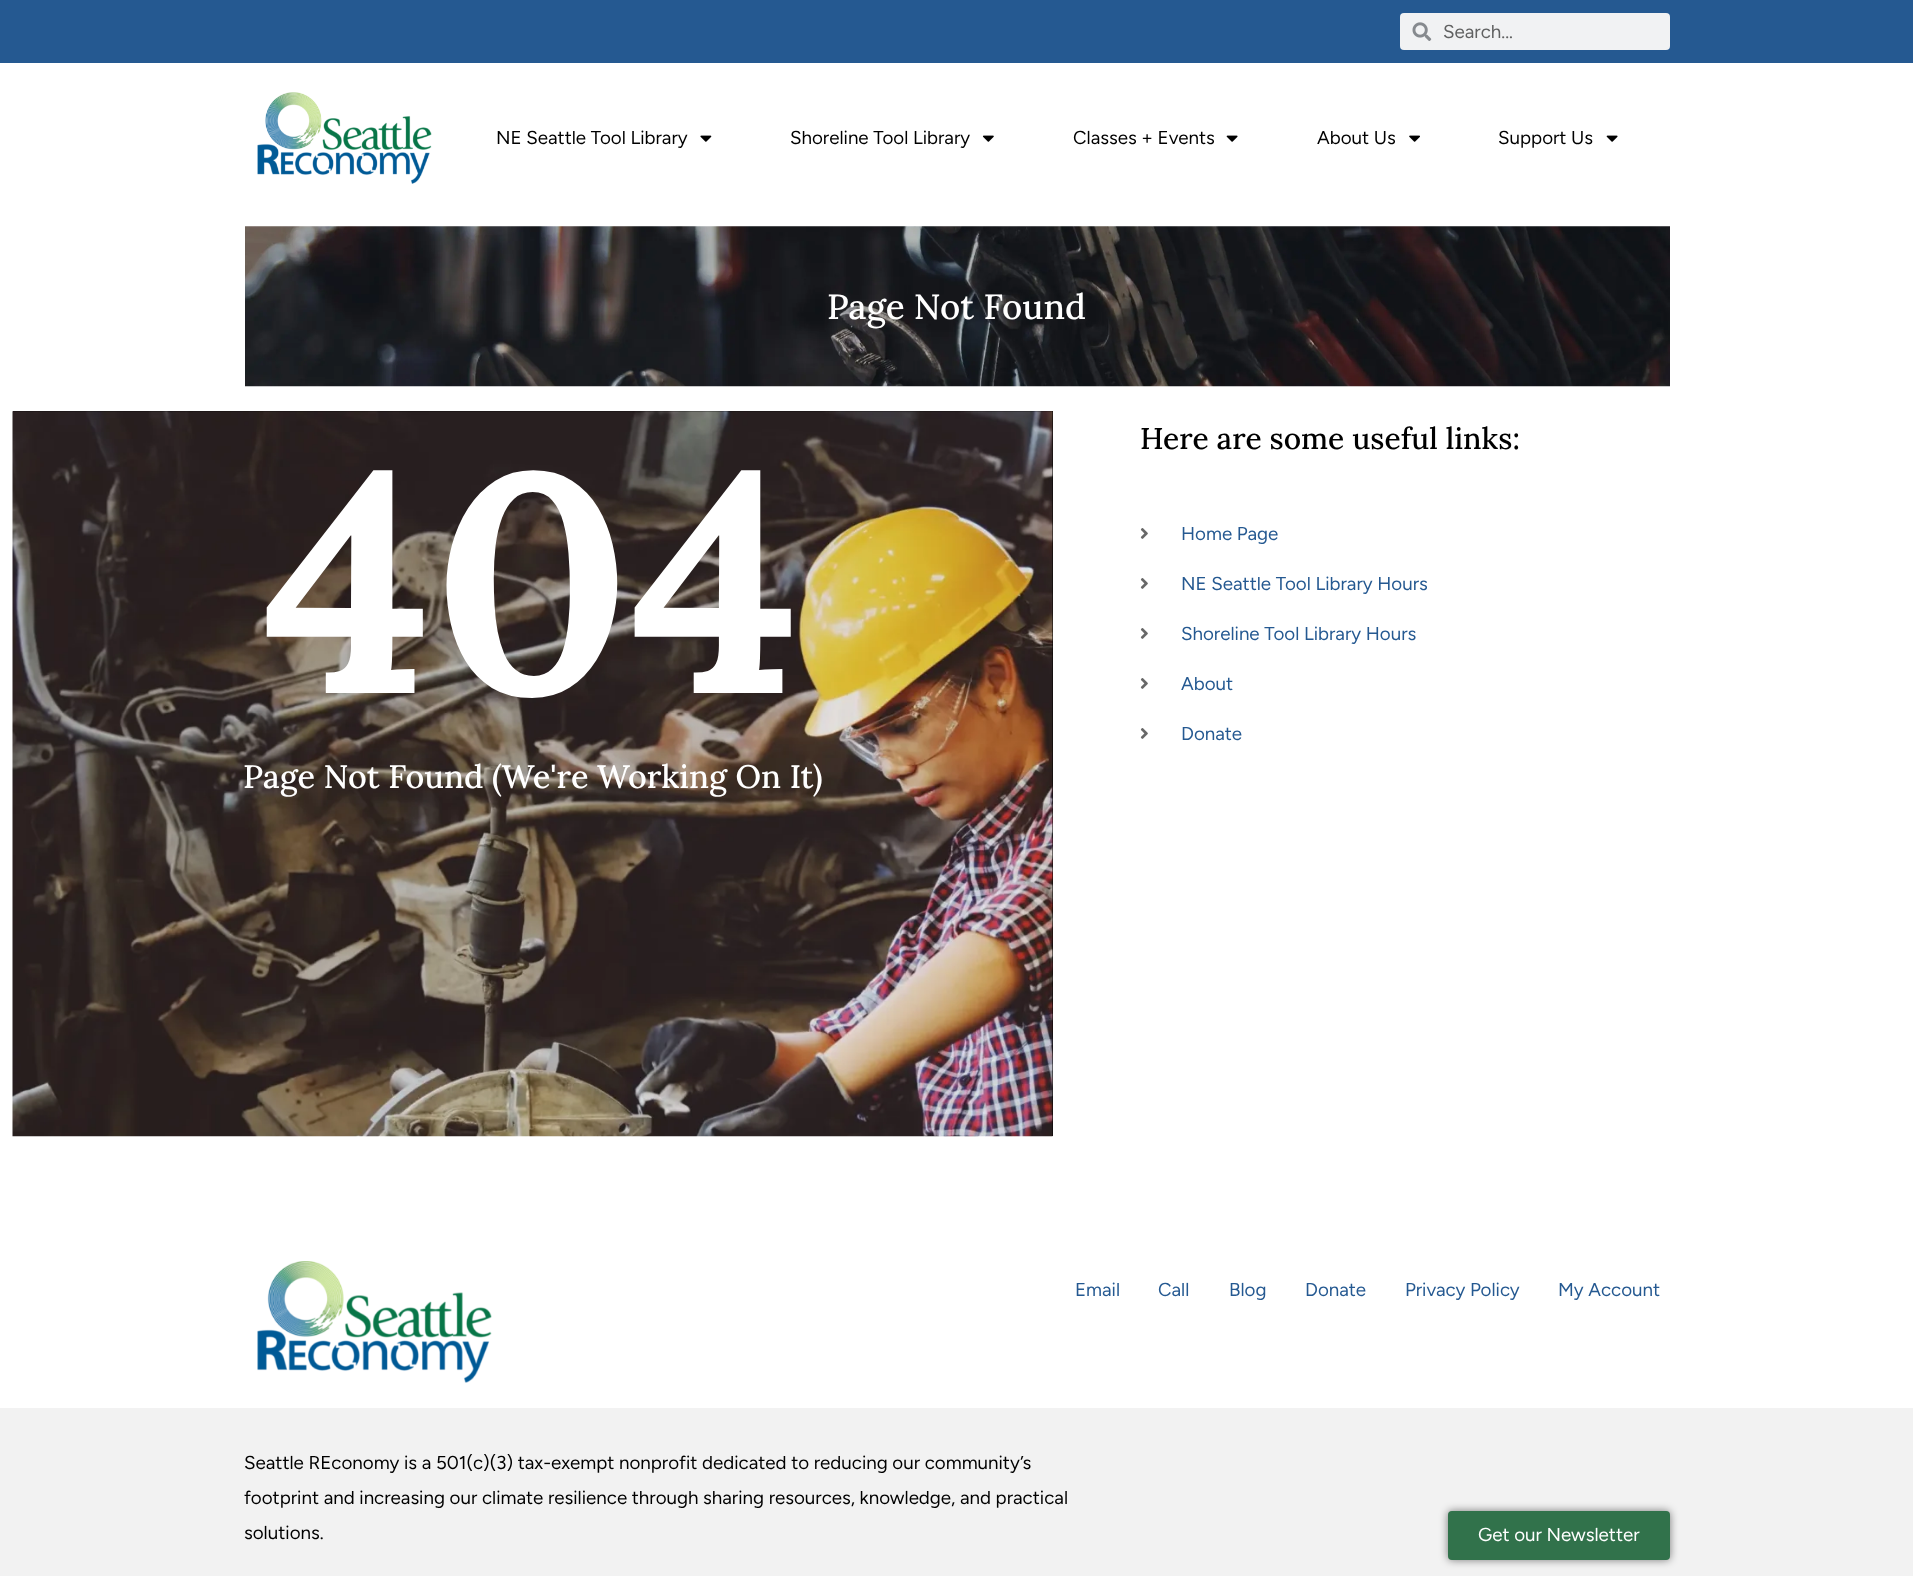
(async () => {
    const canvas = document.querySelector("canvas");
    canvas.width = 1913;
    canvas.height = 1576;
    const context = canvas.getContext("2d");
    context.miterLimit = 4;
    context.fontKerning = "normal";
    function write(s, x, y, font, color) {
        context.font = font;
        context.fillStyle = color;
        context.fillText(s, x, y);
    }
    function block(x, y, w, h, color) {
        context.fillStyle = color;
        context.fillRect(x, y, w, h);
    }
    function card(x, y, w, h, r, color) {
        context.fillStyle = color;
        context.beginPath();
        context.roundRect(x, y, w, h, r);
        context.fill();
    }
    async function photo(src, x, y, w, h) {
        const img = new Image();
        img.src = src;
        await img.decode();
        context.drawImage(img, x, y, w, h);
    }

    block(0, 0, 1913, 1576, "rgb(255, 255, 255)");
    block(0, 0, 1913, 63, "rgb(37, 89, 145)");
    card(1400, 13, 270, 37, 4, "rgb(241, 242, 243)");
    await photo("media/1.png", 1412, 22, 20, 19);
    write("Search...", 1443, 38, "18.75px Figtree", "rgb(96, 97, 97)");
    await photo("media/2.png", 257, 92, 175, 92);
    write("NE Seattle Tool Library", 496, 144, "18.75px Figtree", "rgb(0, 0, 0)");
    await photo("media/3.png", 700, 135, 12, 7);
    write("Shoreline Tool Library", 790, 144, "18.75px Figtree", "rgb(0, 0, 0)");
    await photo("media/4.png", 982, 135, 12, 7);
    write("Classes + Events", 1073, 144, "18.75px Figtree", "rgb(0, 0, 0)");
    await photo("media/5.png", 1226, 135, 12, 7);
    write("About Us", 1317, 144, "18.75px Figtree", "rgb(0, 0, 0)");
    await photo("media/6.png", 1409, 135, 11, 7);
    write("Support Us", 1498, 144, "18.75px Figtree", "rgb(0, 0, 0)");
    await photo("media/5.png", 1606, 135, 12, 7);
    await photo("media/7.png", 245, 226, 1425, 161);
    write("Page Not Found", 827, 319, "500 35px Lora", "rgb(255, 255, 255)");
    block(13, 411, 1040, 725, "rgb(0, 0, 0)");
    await photo("media/8.png", 12, 411, 1041, 726);
    write("404", 263, 693, "bold 311px Lora", "rgb(255, 255, 255)");
    write("Page Not Found (We're Working On It)", 243, 788, "500 32.5px Lora", "rgb(255, 255, 255)");
    write("Here are some useful links:", 1140, 449, "500 30px Lora", "rgb(0, 0, 0)");
    await photo("media/9.png", 1140, 528, 8, 11);
    write("Home Page", 1181, 540, "18.75px Figtree", "rgb(37, 89, 145)");
    await photo("media/9.png", 1140, 578, 8, 11);
    write("NE Seattle Tool Library Hours", 1181, 590, "18.75px Figtree", "rgb(37, 89, 145)");
    await photo("media/9.png", 1140, 628, 8, 11);
    write("Shoreline Tool Library Hours", 1181, 640, "18.75px Figtree", "rgb(37, 89, 145)");
    await photo("media/9.png", 1140, 678, 8, 11);
    write("About", 1181, 690, "18.75px Figtree", "rgb(37, 89, 145)");
    await photo("media/9.png", 1140, 728, 8, 11);
    write("Donate", 1181, 740, "18.75px Figtree", "rgb(37, 89, 145)");
    await photo("media/10.png", 257, 1261, 235, 122);
    write("Email", 1075, 1296, "18.75px Figtree", "rgb(37, 89, 145)");
    write("Call", 1158, 1296, "18.75px Figtree", "rgb(37, 89, 145)");
    write("Blog", 1229, 1296, "18.75px Figtree", "rgb(37, 89, 145)");
    write("Donate", 1305, 1296, "18.75px Figtree", "rgb(37, 89, 145)");
    write("Privacy Policy", 1405, 1296, "18.75px Figtree", "rgb(37, 89, 145)");
    write("My Account", 1558, 1296, "18.75px Figtree", "rgb(37, 89, 145)");
    block(0, 1408, 1913, 168, "rgb(242, 242, 242)");
    write("Seattle REconomy is a 501(c)(3) tax-exempt nonprofit dedicated to reducing our community’s", 244, 1469, "18.75px Figtree", "rgb(0, 0, 0)");
    write("footprint and increasing our climate resilience through sharing resources, knowledge, and practical", 244, 1504, "18.75px Figtree", "rgb(0, 0, 0)");
    write("solutions.", 244, 1539, "18.75px Figtree", "rgb(0, 0, 0)");
    context.fillStyle = "rgba(0, 0, 0, 0.5)";
    context.filter = "blur(4.5px)";
    context.beginPath();
    context.roundRect(1448, 1511, 222, 49, 4);
    context.fill();
    context.filter = "none";
    card(1448, 1511, 222, 49, 4, "rgb(49, 114, 75)");
    write("Get our Newsletter", 1478, 1541, "18.75px Figtree", "rgb(255, 255, 255)");
})();
